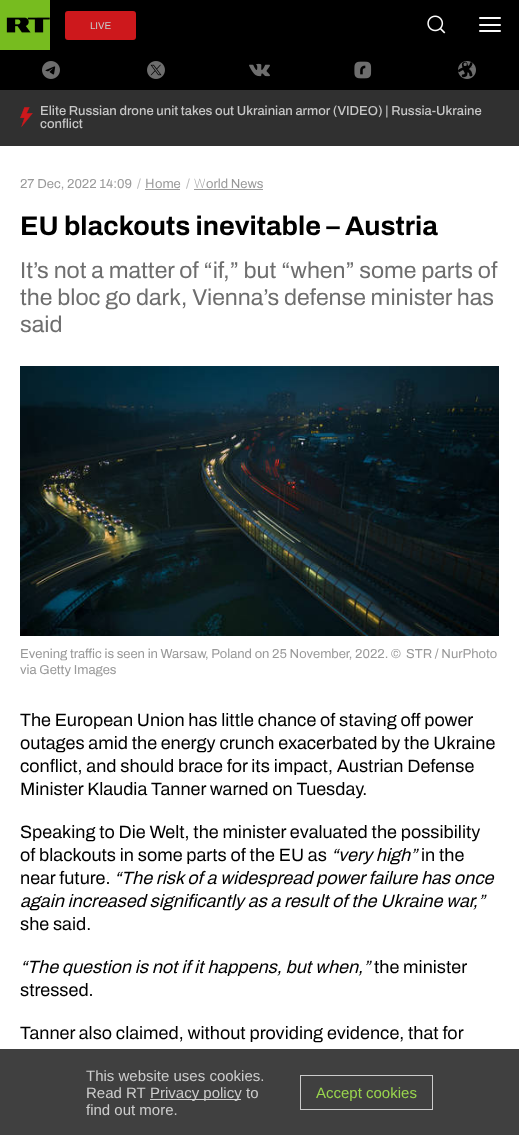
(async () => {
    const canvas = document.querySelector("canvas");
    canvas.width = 519;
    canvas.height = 1135;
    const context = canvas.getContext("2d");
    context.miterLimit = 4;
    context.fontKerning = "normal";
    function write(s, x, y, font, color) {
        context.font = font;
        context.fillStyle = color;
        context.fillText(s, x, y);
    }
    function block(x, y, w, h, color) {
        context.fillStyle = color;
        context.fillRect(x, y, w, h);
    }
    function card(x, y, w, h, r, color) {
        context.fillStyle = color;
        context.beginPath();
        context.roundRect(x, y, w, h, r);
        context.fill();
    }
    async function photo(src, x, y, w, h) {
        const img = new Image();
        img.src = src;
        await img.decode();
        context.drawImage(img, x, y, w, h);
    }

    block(0, 0, 519, 1135, "rgb(255, 255, 255)");
    block(50, 0, 469, 50, "rgb(0, 0, 0)");
    await photo("media/1.png", 0, 0, 50, 50);
    card(65, 11, 71, 29, 3, "rgb(205, 24, 28)");
    write("LIVE", 90, 29, "10px Archivo", "rgb(199, 199, 199)");
    await photo("media/2.png", 427, 15, 19, 19);
    card(479, 17, 22, 2, 1, "rgb(252, 252, 252)");
    card(479, 24, 22, 2, 1, "rgb(252, 252, 252)");
    card(479, 30, 22, 2, 1, "rgb(252, 252, 252)");
    block(0, 1049, 519, 86, "rgb(64, 64, 64)");
    block(0, 50, 519, 40, "rgb(0, 0, 0)");
    await photo("media/3.png", 42, 61, 18, 18);
    await photo("media/4.png", 147, 61, 18, 18);
    await photo("media/5.png", 249, 63, 21, 14);
    await photo("media/6.png", 354, 61, 18, 18);
    await photo("media/7.png", 458, 61, 18, 18);
    block(0, 90, 519, 56, "rgb(48, 48, 48)");
    await photo("media/8.png", 20, 107, 13, 20);
    write("Elite Russian drone unit takes out Ukrainian armor (VIDEO) | Russia-Ukraine", 40, 115, "500 13px Archivo", "rgb(199, 199, 199)");
    write("conflict", 40, 128, "500 13px Archivo", "rgb(199, 199, 199)");
    write("27 Dec, 2022 14:09", 20, 188, "13px Archivo", "rgb(153, 153, 153)");
    write("/", 137, 188, "13px Archivo", "rgb(184, 184, 184)");
    write("H", 145, 188, "13px Noto Sans", "rgb(153, 153, 153)");
    block(145, 189, 35, 1, "rgb(153, 153, 153)");
    write("ome", 155, 188, "13px Archivo", "rgb(153, 153, 153)");
    write("/", 186, 188, "13px Archivo", "rgb(184, 184, 184)");
    write("W", 194, 188, "200 13px Noto Sans", "rgb(153, 153, 153)");
    block(194, 189, 69, 1, "rgb(153, 153, 153)");
    write("orld News", 206, 188, "13px Archivo", "rgb(153, 153, 153)");
    write("EU blackouts inevitable – Austria", 20, 235, "bold 27px Archivo", "rgb(0, 0, 0)");
    write("It’s not a matter of “if,” but “when” some parts of", 20, 278, "23px Archivo", "rgb(110, 110, 110)");
    write("the bloc go dark, Vienna’s defense minister has", 20, 305, "23px Archivo", "rgb(110, 110, 110)");
    write("said", 20, 332, "23px Archivo", "rgb(110, 110, 110)");
    await photo("media/9.png", 20, 366, 479, 270);
    write("Evening traffic is seen in Warsaw, Poland on 25 November, 2022. ©", 20, 658, "13px Archivo", "rgb(153, 153, 153)");
    write("STR / NurPhoto", 406, 658, "13px Archivo", "rgb(153, 153, 153)");
    write("via Getty Images", 20, 674, "13px Archivo", "rgb(153, 153, 153)");
    write("The European Union has little chance of staving off power", 20, 726, "18px Archivo", "rgb(0, 0, 0)");
    write("outages amid the energy crunch exacerbated by the Ukraine", 20, 749, "18px Archivo", "rgb(0, 0, 0)");
    write("conflict, and should brace for its impact, Austrian Defense", 20, 772, "18px Archivo", "rgb(0, 0, 0)");
    write("Minister Klaudia Tanner warned on Tuesday.", 20, 795, "18px Archivo", "rgb(0, 0, 0)");
    write("Speaking to Die Welt, the minister evaluated the possibility", 20, 838, "18px Archivo", "rgb(0, 0, 0)");
    write("of blackouts in some parts of the EU as", 20, 861, "18px Archivo", "rgb(0, 0, 0)");
    write("“very high”", 331, 861, "italic 18px Archivo", "rgb(0, 0, 0)");
    write("in the", 421, 861, "18px Archivo", "rgb(0, 0, 0)");
    write("near future.", 20, 884, "18px Archivo", "rgb(0, 0, 0)");
    write("“The risk of a widespread power failure has once", 114, 884, "italic 18px Archivo", "rgb(0, 0, 0)");
    write("again increased significantly as a result of the Ukraine war,”", 20, 907, "italic 18px Archivo", "rgb(0, 0, 0)");
    write("she said.", 20, 930, "18px Archivo", "rgb(0, 0, 0)");
    write("“The question is not if it happens, but when,”", 20, 973, "italic 18px Archivo", "rgb(0, 0, 0)");
    write("the minister", 374, 973, "18px Archivo", "rgb(0, 0, 0)");
    write("stressed.", 20, 996, "18px Archivo", "rgb(0, 0, 0)");
    write("Tanner also claimed, without providing evidence, that for", 20, 1039, "18px Archivo", "rgb(0, 0, 0)");
    write("This website uses cookies.", 86, 1081, "15px Liberation Sans", "rgb(205, 205, 205)");
    write("Read RT", 86, 1098, "15px Liberation Sans", "rgb(205, 205, 205)");
    block(150, 1099, 91, 1, "rgb(210, 210, 210)");
    write("Privacy policy", 150, 1098, "15px Liberation Sans", "rgb(205, 205, 205)");
    write("to", 246, 1098, "15px Liberation Sans", "rgb(205, 205, 205)");
    write("find out more.", 86, 1115, "15px Liberation Sans", "rgb(205, 205, 205)");
    context.strokeStyle = "rgba(209, 209, 209, 0.97)";
    context.strokeRect(300.5, 1075.5, 132, 34);
    write("Accept cookies", 316, 1098, "15px Liberation Sans", "rgb(153, 213, 77)");
})();
